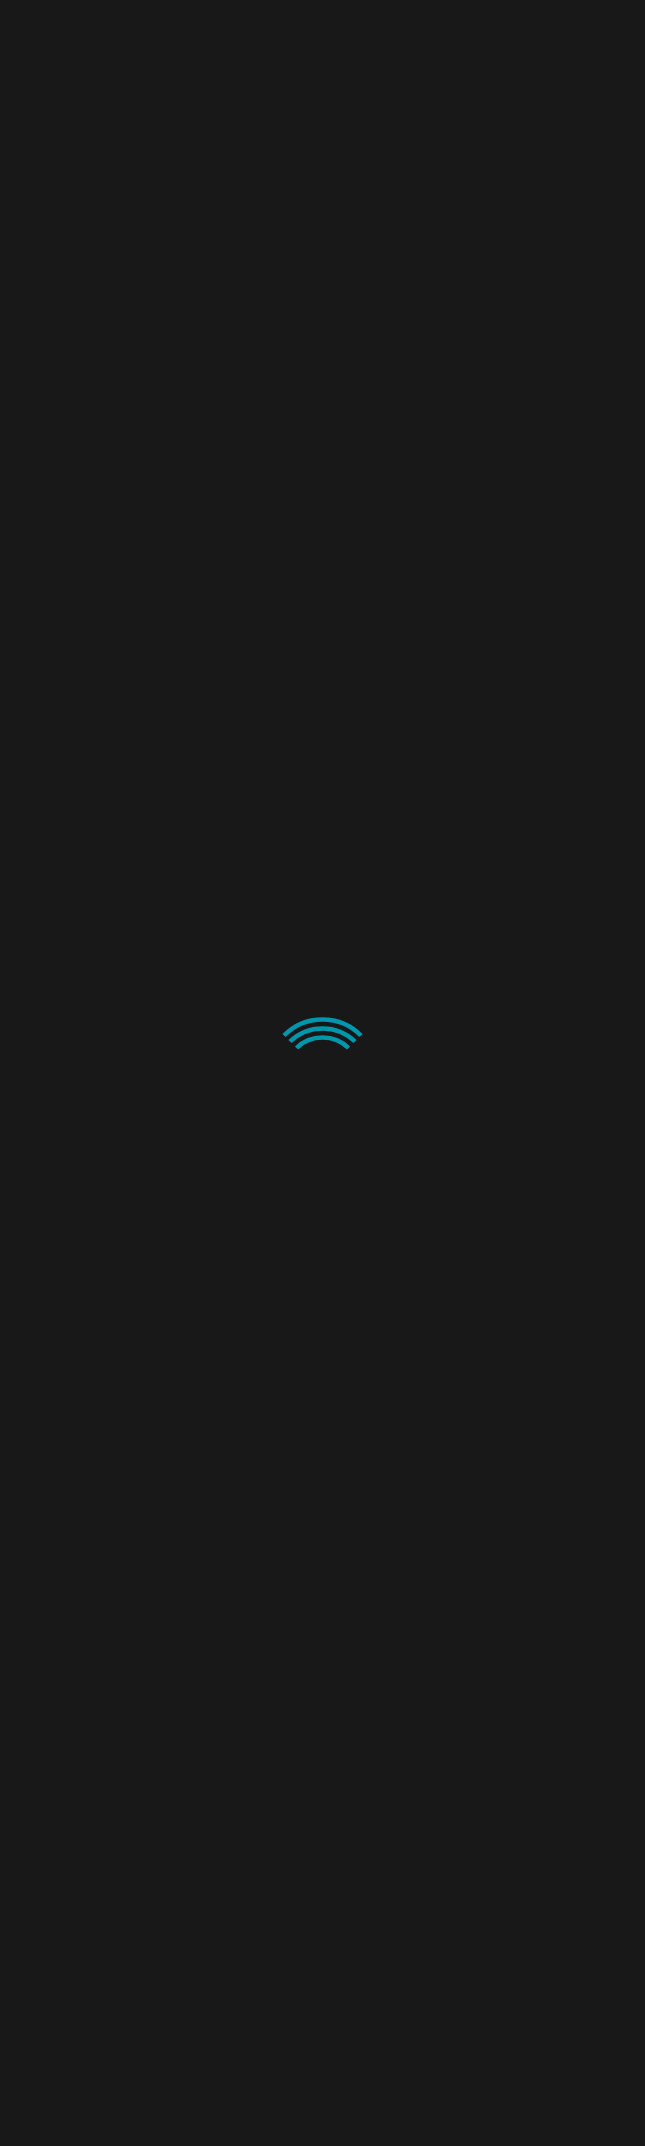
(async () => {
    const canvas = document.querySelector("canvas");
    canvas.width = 645;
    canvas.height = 2146;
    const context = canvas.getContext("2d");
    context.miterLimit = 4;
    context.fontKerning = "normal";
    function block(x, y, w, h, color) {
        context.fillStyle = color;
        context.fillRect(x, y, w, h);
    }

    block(0, 0, 645, 2146, "rgb(24, 24, 24)");
    context.beginPath();
    context.moveTo(284, 1035.5);
    context.bezierCurveTo(305, 1014, 340, 1014, 361, 1035.5);
    context.strokeStyle = "rgb(0, 151, 173)";
    context.lineWidth = 4.5;
    context.stroke();
    context.beginPath();
    context.moveTo(290, 1041.5);
    context.bezierCurveTo(308, 1024, 337, 1024, 355, 1041.5);
    context.stroke();
    context.beginPath();
    context.moveTo(296.5, 1048);
    context.bezierCurveTo(310.5, 1034, 334.5, 1034, 348.5, 1048);
    context.stroke();
})();
